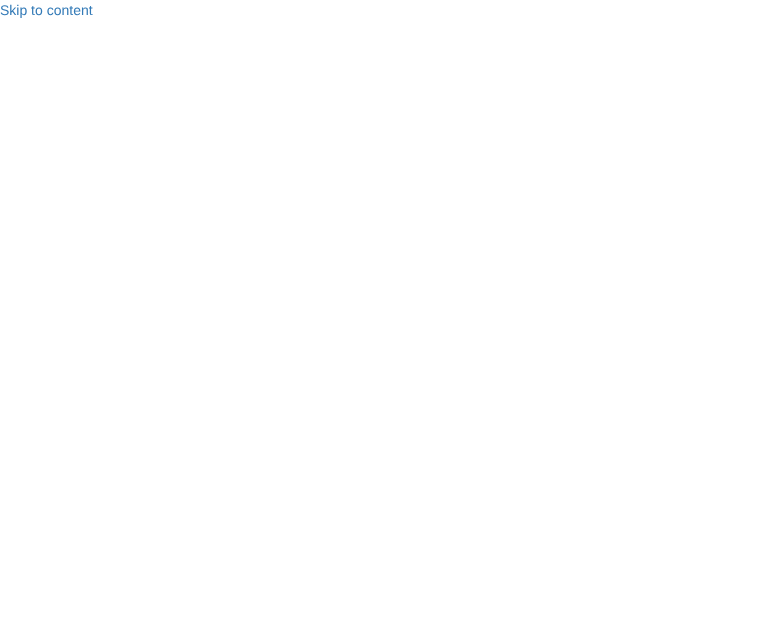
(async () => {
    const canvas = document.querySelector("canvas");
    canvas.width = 784;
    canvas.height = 642;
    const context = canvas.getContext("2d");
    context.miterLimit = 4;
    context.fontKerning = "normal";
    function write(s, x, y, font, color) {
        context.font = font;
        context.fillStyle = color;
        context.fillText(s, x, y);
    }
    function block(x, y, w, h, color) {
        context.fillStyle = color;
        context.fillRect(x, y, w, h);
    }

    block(0, 0, 784, 642, "rgb(255, 255, 255)");
    write("Skip to content", 0, 15, "14px Liberation Sans", "rgb(51, 122, 183)");
})();
